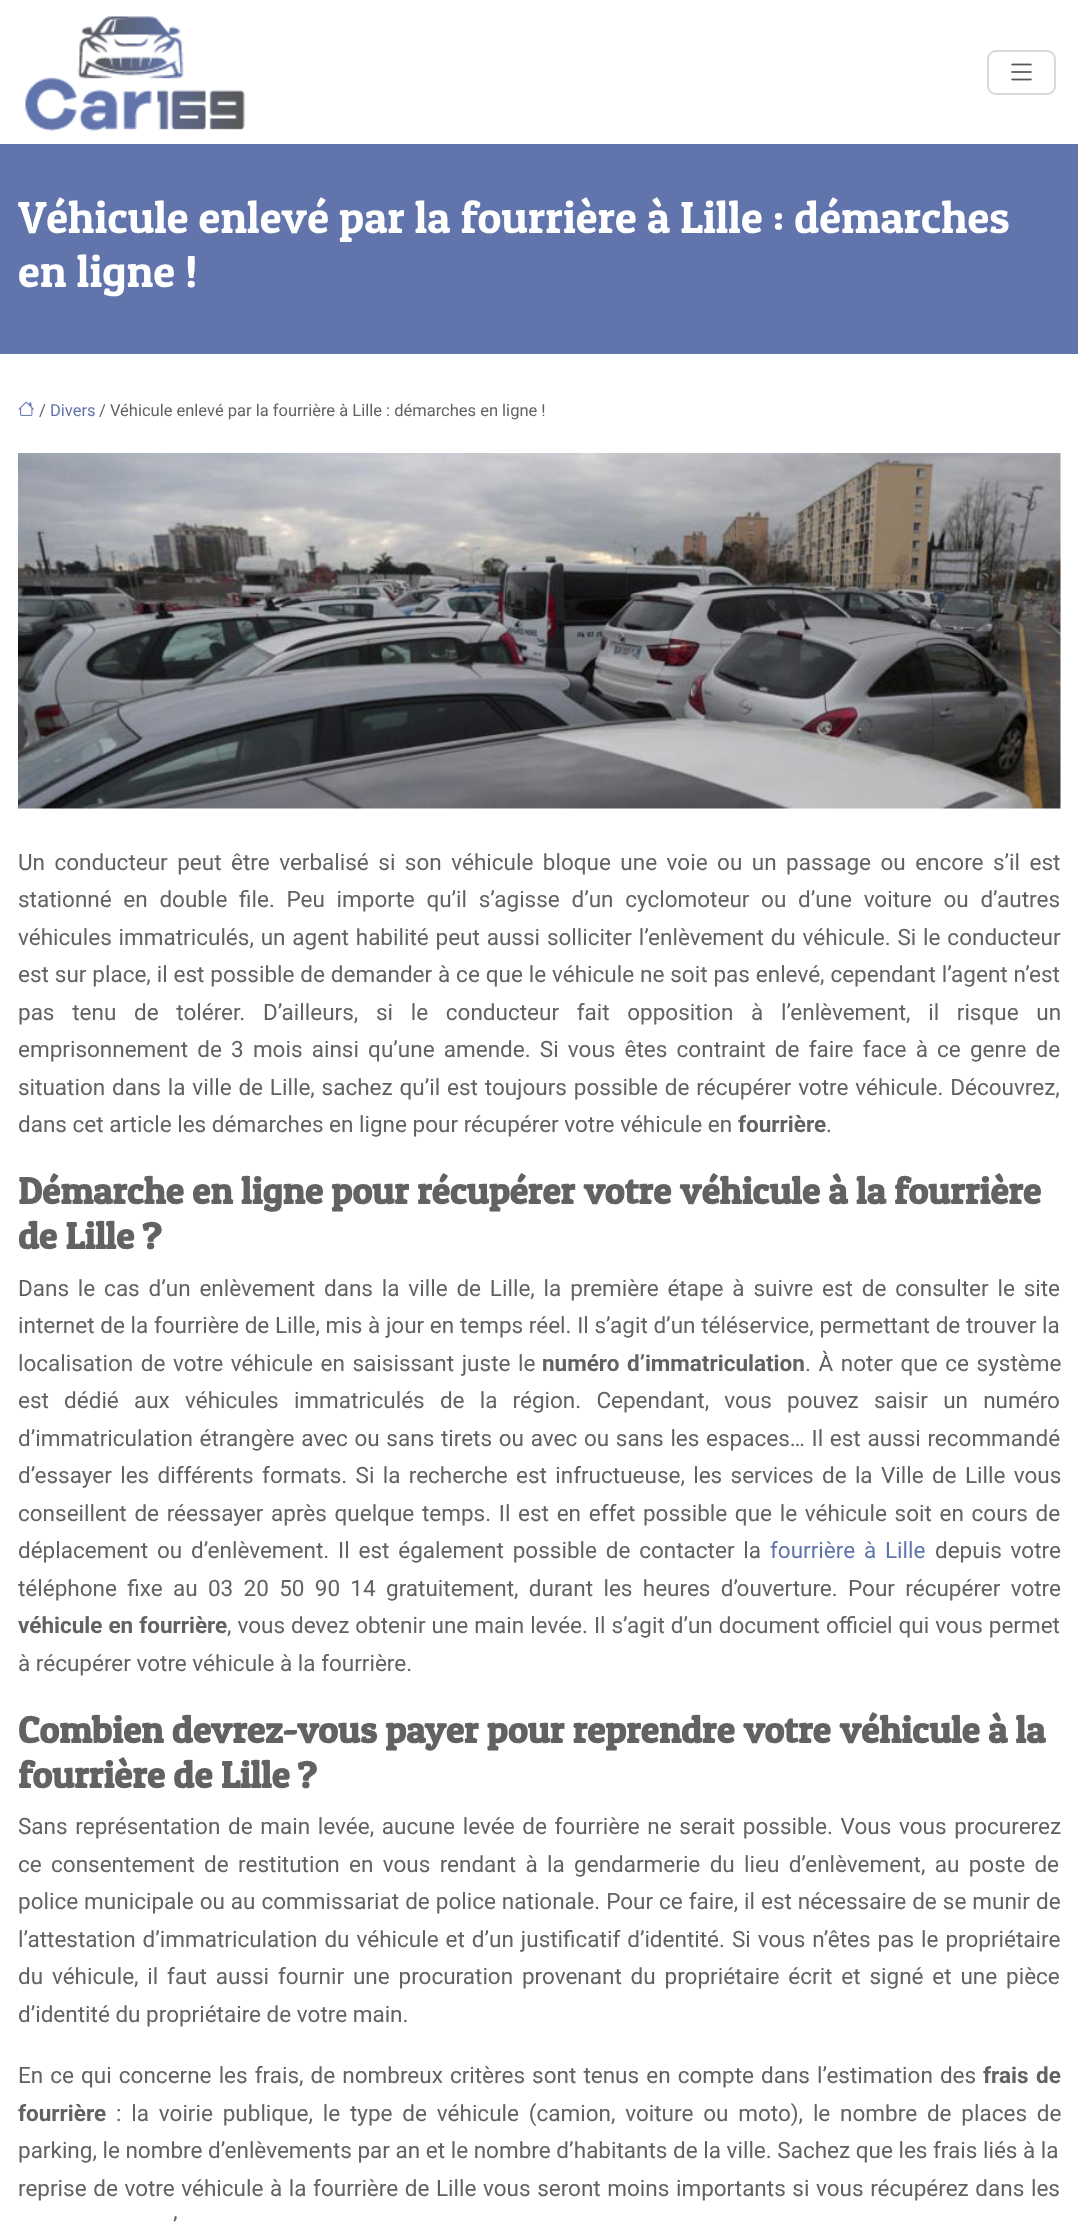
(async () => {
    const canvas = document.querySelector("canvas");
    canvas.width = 1078;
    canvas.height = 2223;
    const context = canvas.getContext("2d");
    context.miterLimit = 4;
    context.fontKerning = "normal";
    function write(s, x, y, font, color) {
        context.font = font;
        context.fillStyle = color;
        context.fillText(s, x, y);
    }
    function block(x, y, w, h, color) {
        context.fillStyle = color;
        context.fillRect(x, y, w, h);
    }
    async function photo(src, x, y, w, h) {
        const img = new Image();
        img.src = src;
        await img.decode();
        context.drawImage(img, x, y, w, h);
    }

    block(0, 0, 1078, 2223, "rgb(255, 255, 255)");
    await photo("media/1.png", 25, 16, 220, 115);
    context.beginPath();
    context.roundRect(988, 51, 67, 43, 8);
    context.strokeStyle = "rgb(217, 217, 217)";
    context.lineWidth = 2;
    context.stroke();
    await photo("media/2.png", 1011, 63, 21, 18);
    block(0, 144, 1078, 210, "rgb(97, 117, 172)");
    write("Véhicule enlevé par la fourrière à Lille : démarches", 18, 233, "45px Patua One", "rgb(255, 255, 255)");
    write("en ligne !", 18, 287, "45px Patua One", "rgb(255, 255, 255)");
    await photo("media/3.png", 18, 401, 16, 15);
    write("/", 39, 416, "16.5px Roboto", "rgb(98, 98, 98)");
    write("Divers", 50, 416, "16.5px Roboto", "rgb(97, 117, 172)");
    write("/ Véhicule enlevé par la fourrière à Lille : démarches en ligne !", 99, 416, "16.5px Roboto", "rgb(98, 98, 98)");
    await photo("media/4.png", 18, 453, 1043, 356);
    context.wordSpacing = "3.9px";
    write("Un conducteur peut être verbalisé si son véhicule bloque une voie ou un passage ou encore s’il est", 18, 870, "22.5px Roboto", "rgb(98, 98, 98)");
    context.wordSpacing = "6.1px";
    write("stationné en double file. Peu importe qu’il s’agisse d’un cyclomoteur ou d’une voiture ou d’autres", 18, 907, "22.5px Roboto", "rgb(98, 98, 98)");
    context.wordSpacing = "1.25px";
    write("véhicules immatriculés, un agent habilité peut aussi solliciter l’enlèvement du véhicule. Si le conducteur", 18, 945, "22.5px Roboto", "rgb(98, 98, 98)");
    context.wordSpacing = "0.3px";
    write("est sur place, il est possible de demander à ce que le véhicule ne soit pas enlevé, cependant l’agent n’est", 18, 982, "22.5px Roboto", "rgb(98, 98, 98)");
    context.wordSpacing = "12.1px";
    write("pas tenu de tolérer. D’ailleurs, si le conducteur fait opposition à l’enlèvement, il risque un", 18, 1020, "22.5px Roboto", "rgb(98, 98, 98)");
    context.wordSpacing = "3.6px";
    write("emprisonnement de 3 mois ainsi qu’une amende. Si vous êtes contraint de faire face à ce genre de", 18, 1057, "22.5px Roboto", "rgb(98, 98, 98)");
    context.wordSpacing = "1.25px";
    write("situation dans la ville de Lille, sachez qu’il est toujours possible de récupérer votre véhicule. Découvrez,", 18, 1095, "22.5px Roboto", "rgb(98, 98, 98)");
    context.wordSpacing = "0px";
    write("dans cet article les démarches en ligne pour récupérer votre véhicule en", 18, 1132, "22.5px Roboto", "rgb(98, 98, 98)");
    write("fourrière", 738, 1132, "bold 22.5px Roboto", "rgb(98, 98, 98)");
    write(".", 826, 1132, "22.5px Roboto", "rgb(98, 98, 98)");
    write("Démarche en ligne pour récupérer votre véhicule à la fourrière", 18, 1204, "bold 37.5px Patua One", "rgb(98, 98, 98)");
    write("de Lille ?", 18, 1249, "bold 37.5px Patua One", "rgb(98, 98, 98)");
    context.wordSpacing = "3.25px";
    write("Dans le cas d’un enlèvement dans la ville de Lille, la première étape à suivre est de consulter le site", 18, 1296, "22.5px Roboto", "rgb(98, 98, 98)");
    context.wordSpacing = "0.1px";
    write("internet de la fourrière de Lille, mis à jour en temps réel. Il s’agit d’un téléservice, permettant de trouver la", 18, 1333, "22.5px Roboto", "rgb(98, 98, 98)");
    context.wordSpacing = "2px";
    write("localisation de votre véhicule en saisissant juste le", 18, 1371, "22.5px Roboto", "rgb(98, 98, 98)");
    write("numéro d’immatriculation", 542, 1371, "bold 22.5px Roboto", "rgb(98, 98, 98)");
    write(". À noter que ce système", 805, 1371, "22.5px Roboto", "rgb(98, 98, 98)");
    context.wordSpacing = "9.6px";
    write("est dédié aux véhicules immatriculés de la région. Cependant, vous pouvez saisir un numéro", 18, 1408, "22.5px Roboto", "rgb(98, 98, 98)");
    context.wordSpacing = "1.1px";
    write("d’immatriculation étrangère avec ou sans tirets ou avec ou sans les espaces… Il est aussi recommandé", 18, 1446, "22.5px Roboto", "rgb(98, 98, 98)");
    context.wordSpacing = "2.75px";
    write("d’essayer les différents formats. Si la recherche est infructueuse, les services de la Ville de Lille vous", 18, 1483, "22.5px Roboto", "rgb(98, 98, 98)");
    context.wordSpacing = "2.1px";
    write("conseillent de réessayer après quelque temps. Il est en effet possible que le véhicule soit en cours de", 18, 1521, "22.5px Roboto", "rgb(98, 98, 98)");
    context.wordSpacing = "3.25px";
    write("déplacement ou d’enlèvement. Il est également possible de contacter la", 18, 1558, "22.5px Roboto", "rgb(98, 98, 98)");
    write("fourrière à Lille", 770, 1558, "22.5px Roboto", "rgb(97, 117, 172)");
    write("depuis votre", 935, 1558, "22.5px Roboto", "rgb(98, 98, 98)");
    context.wordSpacing = "4.75px";
    write("téléphone fixe au 03 20 50 90 14 gratuitement, durant les heures d’ouverture. Pour récupérer votre", 18, 1596, "22.5px Roboto", "rgb(98, 98, 98)");
    context.wordSpacing = "0.4px";
    write("véhicule en fourrière", 18, 1633, "bold 22.5px Roboto", "rgb(98, 98, 98)");
    write(", vous devez obtenir une main levée. Il s’agit d’un document officiel qui vous permet", 227, 1633, "22.5px Roboto", "rgb(98, 98, 98)");
    context.wordSpacing = "0px";
    write("à récupérer votre véhicule à la fourrière.", 18, 1671, "22.5px Roboto", "rgb(98, 98, 98)");
    write("Combien devrez-vous payer pour reprendre votre véhicule à la", 18, 1743, "bold 37.5px Patua One", "rgb(98, 98, 98)");
    write("fourrière de Lille ?", 18, 1788, "bold 37.5px Patua One", "rgb(98, 98, 98)");
    context.wordSpacing = "2.1px";
    write("Sans représentation de main levée, aucune levée de fourrière ne serait possible. Vous vous procurerez", 18, 1834, "22.5px Roboto", "rgb(98, 98, 98)");
    context.wordSpacing = "3.75px";
    write("ce consentement de restitution en vous rendant à la gendarmerie du lieu d’enlèvement, au poste de", 18, 1872, "22.5px Roboto", "rgb(98, 98, 98)");
    context.wordSpacing = "0.4px";
    write("police municipale ou au commissariat de police nationale. Pour ce faire, il est nécessaire de se munir de", 18, 1909, "22.5px Roboto", "rgb(98, 98, 98)");
    context.wordSpacing = "1.4px";
    write("l’attestation d’immatriculation du véhicule et d’un justificatif d’identité. Si vous n’êtes pas le propriétaire", 18, 1947, "22.5px Roboto", "rgb(98, 98, 98)");
    context.wordSpacing = "3.25px";
    write("du véhicule, il faut aussi fournir une procuration provenant du propriétaire écrit et signé et une pièce", 18, 1984, "22.5px Roboto", "rgb(98, 98, 98)");
    context.wordSpacing = "0px";
    write("d’identité du propriétaire de votre main.", 18, 2022, "22.5px Roboto", "rgb(98, 98, 98)");
    context.wordSpacing = "1.5px";
    write("En ce qui concerne les frais, de nombreux critères sont tenus en compte dans l’estimation des", 18, 2083, "22.5px Roboto", "rgb(98, 98, 98)");
    context.wordSpacing = "2px";
    write("frais de", 983, 2083, "bold 22.5px Roboto", "rgb(98, 98, 98)");
    context.wordSpacing = "0px";
    write("fourrière", 18, 2121, "bold 22.5px Roboto", "rgb(98, 98, 98)");
    context.wordSpacing = "4.25px";
    write(": la voirie publique, le type de véhicule (camion, voiture ou moto), le nombre de places de", 116, 2121, "22.5px Roboto", "rgb(98, 98, 98)");
    context.wordSpacing = "0px";
    write("parking, le nombre d’enlèvements par an et le nombre d’habitants de la ville. Sachez que les frais liés à la", 18, 2158, "22.5px Roboto", "rgb(98, 98, 98)");
    context.wordSpacing = "1px";
    write("reprise de votre véhicule à la fourrière de Lille vous seront moins importants si vous récupérez dans les", 18, 2196, "22.5px Roboto", "rgb(98, 98, 98)");
    context.wordSpacing = "4.75px";
    write("’", 173, 2233, "22.5px Roboto", "rgb(98, 98, 98)");
})();
